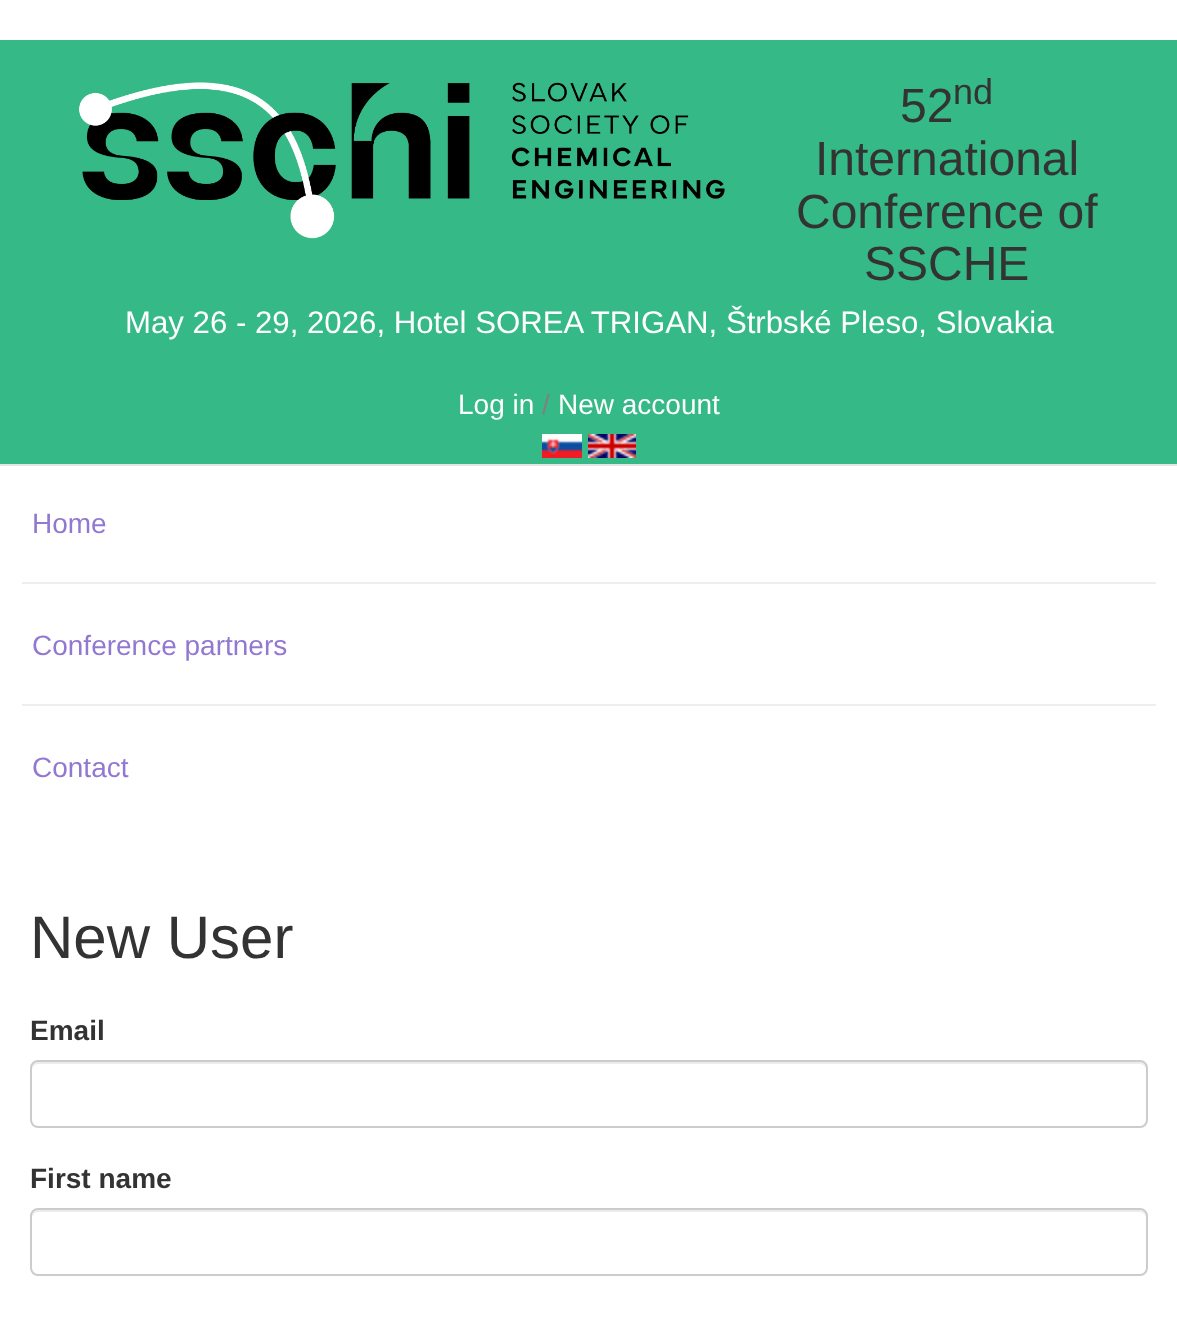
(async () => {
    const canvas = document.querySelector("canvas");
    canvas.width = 1177;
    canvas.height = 1319;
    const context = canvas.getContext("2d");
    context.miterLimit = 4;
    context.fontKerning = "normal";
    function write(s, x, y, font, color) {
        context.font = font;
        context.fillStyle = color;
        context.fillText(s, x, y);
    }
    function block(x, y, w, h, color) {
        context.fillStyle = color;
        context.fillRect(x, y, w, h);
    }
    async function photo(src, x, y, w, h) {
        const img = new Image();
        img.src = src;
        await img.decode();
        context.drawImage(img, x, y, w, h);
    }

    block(0, 0, 1177, 1319, "rgb(255, 255, 255)");
    block(0, 40, 1177, 424, "rgb(52, 185, 135)");
    block(0, 464, 1177, 2, "rgb(229, 229, 229)");
    write("52", 900, 122, "48px Liberation Sans", "rgb(51, 51, 51)");
    write("nd", 953, 104, "36px Liberation Sans", "rgb(51, 51, 51)");
    write("International", 815, 175, "48px Liberation Sans", "rgb(51, 51, 51)");
    write("Conference of", 796, 228, "48px Liberation Sans", "rgb(51, 51, 51)");
    write("SSCHE", 864, 280, "48px Liberation Sans", "rgb(51, 51, 51)");
    write("May 26 - 29, 2026, Hotel SOREA TRIGAN, Štrbské Pleso, Slovakia", 125, 333, "31.2px Liberation Sans", "rgb(255, 255, 255)");
    await photo("media/1.png", 78, 82, 647, 157);
    write("Log in", 458, 414, "28px Liberation Sans", "rgb(255, 255, 255)");
    write("/", 542, 414, "28px Liberation Sans", "rgb(128, 128, 128)");
    write("New account", 558, 414, "28px Liberation Sans", "rgb(255, 255, 255)");
    await photo("media/2.png", 542, 434, 40, 24);
    await photo("media/3.png", 588, 434, 48, 24);
    write("Home", 32, 533, "28px Liberation Sans", "rgb(146, 120, 209)");
    block(22, 582, 1134, 2, "rgb(238, 238, 238)");
    write("Conference partners", 32, 655, "28px Liberation Sans", "rgb(146, 120, 209)");
    block(22, 704, 1134, 2, "rgb(238, 238, 238)");
    write("Contact", 32, 777, "28px Liberation Sans", "rgb(146, 120, 209)");
    write("New User", 30, 958, "60px Liberation Sans", "rgb(51, 51, 51)");
    write("Email", 30, 1040, "bold 28px Liberation Sans", "rgb(51, 51, 51)");
    context.fillStyle = "rgb(236, 236, 236)";
    context.beginPath();
    context.moveTo(38, 1064);
    context.lineTo(1140, 1064);
    context.bezierCurveTo(1143, 1064, 1146, 1067, 1146, 1070);
    context.lineTo(1146, 1068);
    context.bezierCurveTo(1146, 1065, 1143, 1062, 1140, 1062);
    context.lineTo(38, 1062);
    context.bezierCurveTo(35, 1062, 32, 1065, 32, 1068);
    context.lineTo(32, 1070);
    context.bezierCurveTo(32, 1067, 35, 1064, 38, 1064);
    context.closePath();
    context.fill();
    context.beginPath();
    context.roundRect(31, 1061, 1116, 66, 7);
    context.strokeStyle = "rgb(204, 204, 204)";
    context.lineWidth = 2;
    context.stroke();
    write("First name", 30, 1188, "bold 28px Liberation Sans", "rgb(51, 51, 51)");
    context.fillStyle = "rgb(236, 236, 236)";
    context.beginPath();
    context.moveTo(38, 1212);
    context.lineTo(1140, 1212);
    context.bezierCurveTo(1143, 1212, 1146, 1215, 1146, 1218);
    context.lineTo(1146, 1216);
    context.bezierCurveTo(1146, 1213, 1143, 1210, 1140, 1210);
    context.lineTo(38, 1210);
    context.bezierCurveTo(35, 1210, 32, 1213, 32, 1216);
    context.lineTo(32, 1218);
    context.bezierCurveTo(32, 1215, 35, 1212, 38, 1212);
    context.closePath();
    context.fill();
    context.beginPath();
    context.roundRect(31, 1209, 1116, 66, 7);
    context.stroke();
})();
